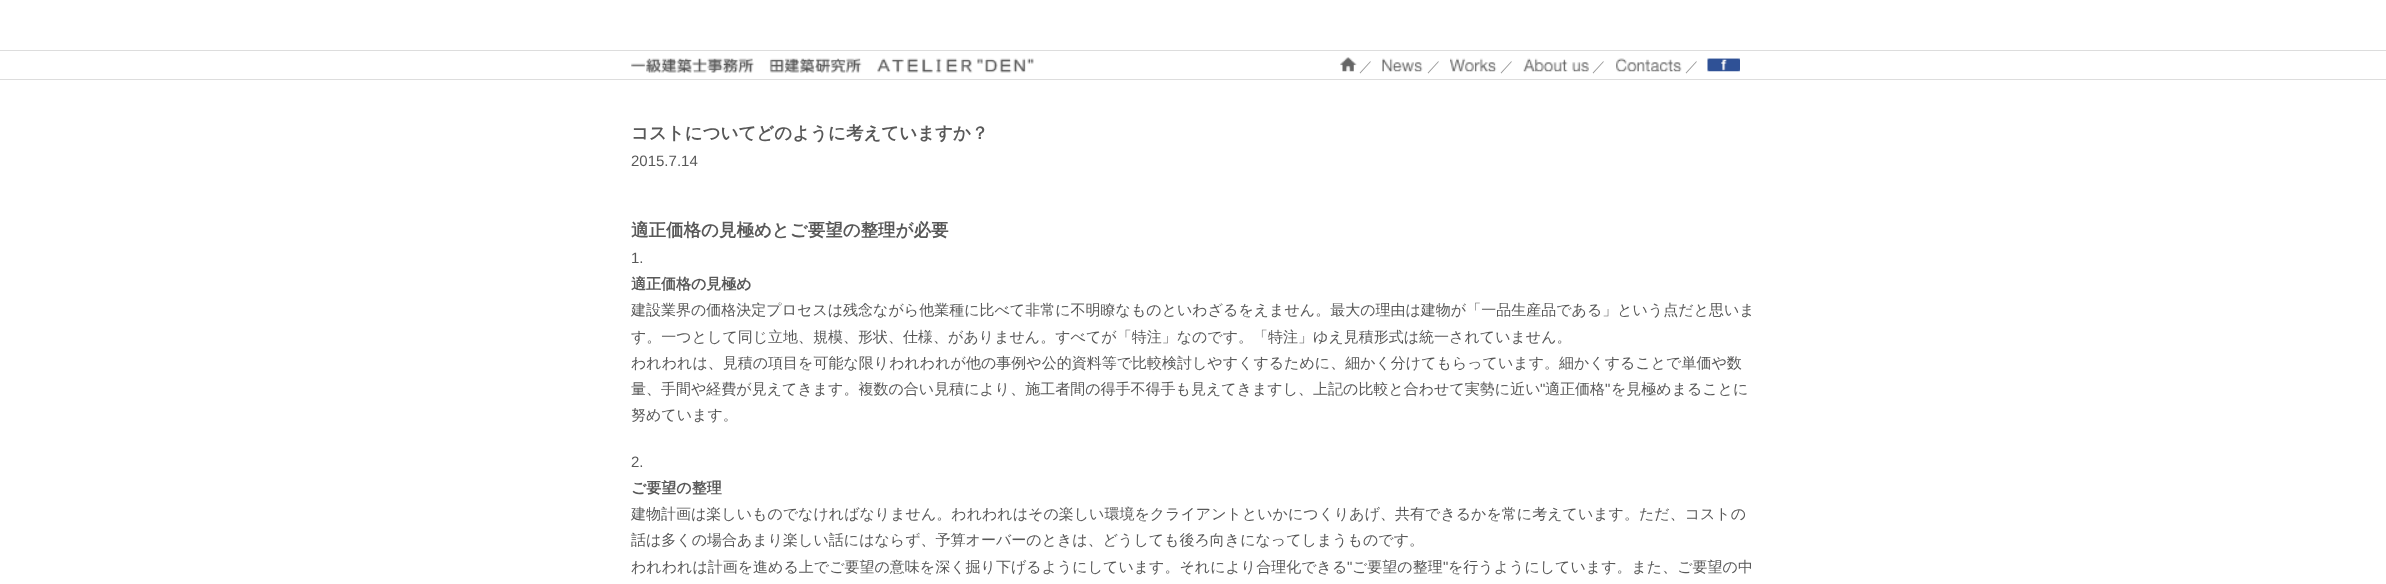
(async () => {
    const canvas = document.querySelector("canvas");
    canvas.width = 2386;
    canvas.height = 584;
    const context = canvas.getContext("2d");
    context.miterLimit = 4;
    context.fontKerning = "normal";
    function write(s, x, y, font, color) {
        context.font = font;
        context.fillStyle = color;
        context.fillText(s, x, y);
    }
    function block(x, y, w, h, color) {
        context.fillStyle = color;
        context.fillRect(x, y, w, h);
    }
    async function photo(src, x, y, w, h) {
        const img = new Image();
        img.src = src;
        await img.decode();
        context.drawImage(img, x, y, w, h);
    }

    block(0, 0, 2386, 584, "rgb(255, 255, 255)");
    block(0, 50, 2386, 1, "rgb(221, 221, 221)");
    block(0, 79, 2386, 1, "rgb(221, 221, 221)");
    await photo("media/1.png", 631, 58, 403, 15);
    await photo("media/2.png", 1340, 57, 17, 15);
    write("／", 1359, 71, "500 14px WenQuanYi Zen Hei", "rgb(153, 153, 153)");
    await photo("media/3.png", 1382, 58, 41, 14);
    write("／", 1427, 71, "500 14px WenQuanYi Zen Hei", "rgb(153, 153, 153)");
    await photo("media/4.png", 1450, 58, 47, 14);
    write("／", 1500, 71, "500 14px WenQuanYi Zen Hei", "rgb(153, 153, 153)");
    await photo("media/5.png", 1523, 58, 66, 14);
    write("／", 1592, 71, "500 14px WenQuanYi Zen Hei", "rgb(153, 153, 153)");
    await photo("media/6.png", 1616, 58, 66, 14);
    write("／", 1685, 71, "500 14px WenQuanYi Zen Hei", "rgb(153, 153, 153)");
    await photo("media/7.png", 1707, 58, 33, 14);
    write("コストについてどのように考えていますか？", 631, 139, "bold 17.5px WenQuanYi Zen Hei", "rgb(88, 88, 88)");
    write("2015.7.14", 631, 166, "15px Liberation Sans", "rgb(88, 88, 88)");
    write("適正価格の見極めとご要望の整理が必要", 631, 236, "bold 17.5px WenQuanYi Zen Hei", "rgb(88, 88, 88)");
    write("1.", 631, 263, "15px Liberation Sans", "rgb(88, 88, 88)");
    write("適正価格の見極め", 631, 289, "bold 15px WenQuanYi Zen Hei", "rgb(88, 88, 88)");
    write("建設業界の価格決定プロセスは残念ながら他業種に比べて非常に不明瞭なものといわざるをえません。最大の理由は建物が「一品生産品である」という点だと思いま", 631, 315, "500 15px WenQuanYi Zen Hei", "rgb(88, 88, 88)");
    write("す。一つとして同じ立地、規模、形状、仕様、がありません。すべてが「特注」なのです。「特注」ゆえ見積形式は統一されていません。", 631, 342, "500 15px WenQuanYi Zen Hei", "rgb(88, 88, 88)");
    write("われわれは、見積の項目を可能な限りわれわれが他の事例や公的資料等で比較検討しやすくするために、細かく分けてもらっています。細かくすることで単価や数", 631, 368, "500 15px WenQuanYi Zen Hei", "rgb(88, 88, 88)");
    write("量、手間や経費が見えてきます。複数の合い見積により、施工者間の得手不得手も見えてきますし、上記の比較と合わせて実勢に近い", 631, 394, "500 15px WenQuanYi Zen Hei", "rgb(88, 88, 88)");
    write("\"", 1540, 394, "15px Liberation Sans", "rgb(88, 88, 88)");
    write("適正価格", 1545, 394, "500 15px WenQuanYi Zen Hei", "rgb(88, 88, 88)");
    write("\"", 1605, 394, "15px Liberation Sans", "rgb(88, 88, 88)");
    write("を見極めまることに", 1611, 394, "500 15px WenQuanYi Zen Hei", "rgb(88, 88, 88)");
    write("努めています。", 631, 420, "500 15px WenQuanYi Zen Hei", "rgb(88, 88, 88)");
    write("2.", 631, 467, "15px Liberation Sans", "rgb(88, 88, 88)");
    write("ご要望の整理", 631, 493, "bold 15px WenQuanYi Zen Hei", "rgb(88, 88, 88)");
    write("建物計画は楽しいものでなければなりません。われわれはその楽しい環境をクライアントといかにつくりあげ、共有できるかを常に考えています。ただ、コストの", 631, 519, "500 15px WenQuanYi Zen Hei", "rgb(88, 88, 88)");
    write("話は多くの場合あまり楽しい話にはならず、予算オーバーのときは、どうしても後ろ向きになってしまうものです。", 631, 545, "500 15px WenQuanYi Zen Hei", "rgb(88, 88, 88)");
    write("われわれは計画を進める上でご要望の意味を深く掘り下げるようにしています。それにより合理化できる", 631, 572, "500 15px WenQuanYi Zen Hei", "rgb(88, 88, 88)");
    write("\"", 1347, 572, "15px Liberation Sans", "rgb(88, 88, 88)");
    write("ご要望の整理", 1352, 572, "500 15px WenQuanYi Zen Hei", "rgb(88, 88, 88)");
    write("\"", 1443, 572, "15px Liberation Sans", "rgb(88, 88, 88)");
    write("を行うようにしています。また、ご要望の中", 1448, 572, "500 15px WenQuanYi Zen Hei", "rgb(88, 88, 88)");
})();
